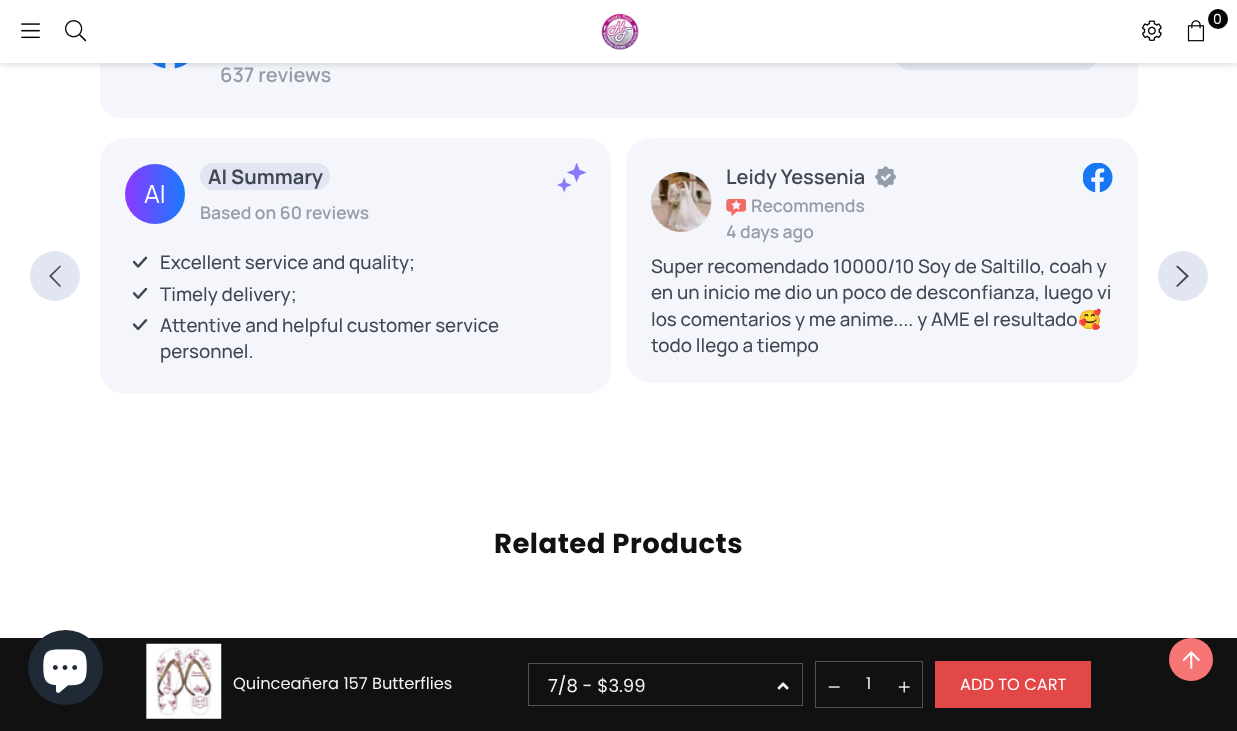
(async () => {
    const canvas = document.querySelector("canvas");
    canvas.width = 1237;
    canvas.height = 731;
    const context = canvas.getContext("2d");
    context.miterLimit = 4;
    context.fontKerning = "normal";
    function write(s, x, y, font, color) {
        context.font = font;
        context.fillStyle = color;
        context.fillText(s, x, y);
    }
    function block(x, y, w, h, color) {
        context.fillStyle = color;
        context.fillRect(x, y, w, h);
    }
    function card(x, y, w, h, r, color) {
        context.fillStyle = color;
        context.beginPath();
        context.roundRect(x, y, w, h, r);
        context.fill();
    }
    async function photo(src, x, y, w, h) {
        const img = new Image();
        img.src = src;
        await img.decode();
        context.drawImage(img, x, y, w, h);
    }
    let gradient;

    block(0, 0, 1237, 731, "rgb(255, 255, 255)");
    card(100, -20, 1038, 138, 20, "rgb(244, 246, 252)");
    card(895, 13, 203, 57, 15, "rgb(225, 230, 242)");
    await photo("media/7.png", 152, 63, 36, 6);
    context.fillStyle = "rgba(0, 0, 0, 0.2)";
    context.filter = "blur(4.5px)";
    context.beginPath();
    context.rect(0, 0, 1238, 63);
    context.fill();
    context.filter = "none";
    block(0, 0, 1237, 63, "rgb(255, 255, 255)");
    await photo("media/1.png", 601, 13, 38, 37);
    context.fillStyle = "rgb(3, 5, 5)";
    context.beginPath();
    context.arc(1218, 19, 10, 0, Math.PI * 2);
    context.fill();
    write("0", 1213, 24, "14px Poppins", "rgb(255, 255, 255)");
    await photo("media/2.png", 1187, 20, 18, 22);
    await photo("media/3.png", 1142, 20, 20, 21);
    await photo("media/4.png", 21, 23, 19, 16);
    await photo("media/5.png", 65, 20, 22, 22);
    block(0, 638, 1237, 93, "rgb(17, 17, 17)");
    context.fillStyle = "rgb(32, 42, 54)";
    context.beginPath();
    context.arc(65.5, 667.5, 37.5, 0, Math.PI * 2);
    context.fill();
    await photo("media/6.png", 43, 649, 44, 44);
    write("637 reviews", 220, 82, "600 20px Manrope", "rgb(147, 157, 169)");
    context.fillStyle = "rgb(225, 230, 242)";
    context.beginPath();
    context.arc(55, 276, 25, 0, Math.PI * 2);
    context.fill();
    context.fillStyle = "rgb(65, 72, 83)";
    context.beginPath();
    context.moveTo(61, 286);
    context.lineTo(60, 287);
    context.lineTo(49, 276);
    context.lineTo(60, 265.5);
    context.lineTo(61, 266.5);
    context.lineTo(51.5, 276);
    context.closePath();
    context.fill();
    card(100, 138, 511, 256, 25, "rgb(244, 246, 252)");
    gradient = context.createLinearGradient(125, 194, 185, 194);
    gradient.addColorStop(0, "rgb(141, 56, 255)");
    gradient.addColorStop(1, "rgb(25, 123, 255)");
    context.fillStyle = gradient;
    context.beginPath();
    context.arc(155, 194, 30, 0, Math.PI * 2);
    context.fill();
    write("AI", 144, 203, "25px Manrope", "rgb(255, 255, 255)");
    card(200, 163, 130, 27, 13.5, "rgb(225, 230, 242)");
    write("AI Summary", 208, 184, "bold 20px Manrope", "rgb(65, 72, 83)");
    write("Based on 60 reviews", 200, 219, "600 17.5px Manrope", "rgb(147, 157, 169)");
    await photo("media/8.png", 557, 163, 29, 30);
    await photo("media/9.png", 133, 256, 15, 12);
    write("Excellent service and quality;", 160, 269, "500 18.75px Manrope", "rgb(65, 72, 83)");
    await photo("media/10.png", 133, 288, 15, 11);
    write("Timely delivery;", 160, 301, "500 18.75px Manrope", "rgb(65, 72, 83)");
    await photo("media/11.png", 133, 319, 15, 12);
    write("Attentive and helpful customer service", 160, 332, "500 18.75px Manrope", "rgb(65, 72, 83)");
    write("personnel.", 160, 358, "500 18.75px Manrope", "rgb(65, 72, 83)");
    card(626, 138, 512, 245, 25, "rgb(244, 246, 252)");
    await photo("media/12.png", 651, 172, 61, 60);
    write("Leidy Yessenia", 726, 184, "600 20px Manrope", "rgb(65, 72, 83)");
    await photo("media/13.png", 875, 166, 21, 22);
    await photo("media/14.png", 726, 199, 20, 17);
    write("Recommends", 751, 212, "600 17.5px Manrope", "rgb(147, 157, 169)");
    write("4 days ago", 726, 238, "600 17.5px Manrope", "rgb(147, 157, 169)");
    await photo("media/15.png", 1083, 163, 30, 30);
    write("Super recomendado 10000/10 Soy de Saltillo, coah y", 651, 273, "500 18.75px Manrope", "rgb(65, 72, 83)");
    write("en un inicio me dio un poco de desconfianza, luego vi", 651, 299, "500 18.75px Manrope", "rgb(65, 72, 83)");
    write("los comentarios y me anime.... y AME el resultado", 651, 326, "500 18.75px Manrope", "rgb(65, 72, 83)");
    write("🥰", 1078, 326, "18.75px Noto Color Emoji", "rgb(65, 72, 83)");
    write("todo llego a tiempo", 651, 352, "500 18.75px Manrope", "rgb(65, 72, 83)");
    context.fillStyle = "rgb(225, 230, 242)";
    context.beginPath();
    context.arc(1183, 276, 25, 0, Math.PI * 2);
    context.fill();
    context.fillStyle = "rgb(65, 72, 83)";
    context.beginPath();
    context.moveTo(1176, 266.5);
    context.lineTo(1177.5, 265.5);
    context.lineTo(1189, 276);
    context.lineTo(1177.5, 287);
    context.lineTo(1176, 286);
    context.lineTo(1186, 276);
    context.closePath();
    context.fill();
    context.letterSpacing = "0.5px";
    write("Related Products", 494, 553, "bold 27.5px Poppins", "rgb(17, 17, 17)");
    await photo("media/16.png", 146, 643, 76, 76);
    context.letterSpacing = "0px";
    write("Quinceañera 157 Butterflies", 233, 689, "16.25px Poppins", "rgb(245, 245, 245)");
    context.strokeStyle = "rgb(83, 83, 83)";
    context.strokeRect(528.5, 663.5, 274, 42);
    write("7/8 - $3.99", 548, 692, "18px Poppins", "rgb(245, 245, 245)");
    await photo("media/17.png", 777, 682, 12, 8);
    context.strokeRect(815.5, 661.5, 107, 46);
    await photo("media/18.png", 828, 686, 12, 2);
    write("1", 866, 689, "16.25px Poppins", "rgb(245, 245, 245)");
    await photo("media/19.png", 898, 681, 12, 12);
    block(935, 661, 156, 47, "rgb(227, 72, 72)");
    write("ADD TO CART", 960, 690, "16.25px Poppins", "rgb(255, 255, 255)");
    card(1169, 638, 44, 43, 21.5, "rgb(247, 117, 117)");
    await photo("media/20.png", 1182, 651, 18, 18);
})();
